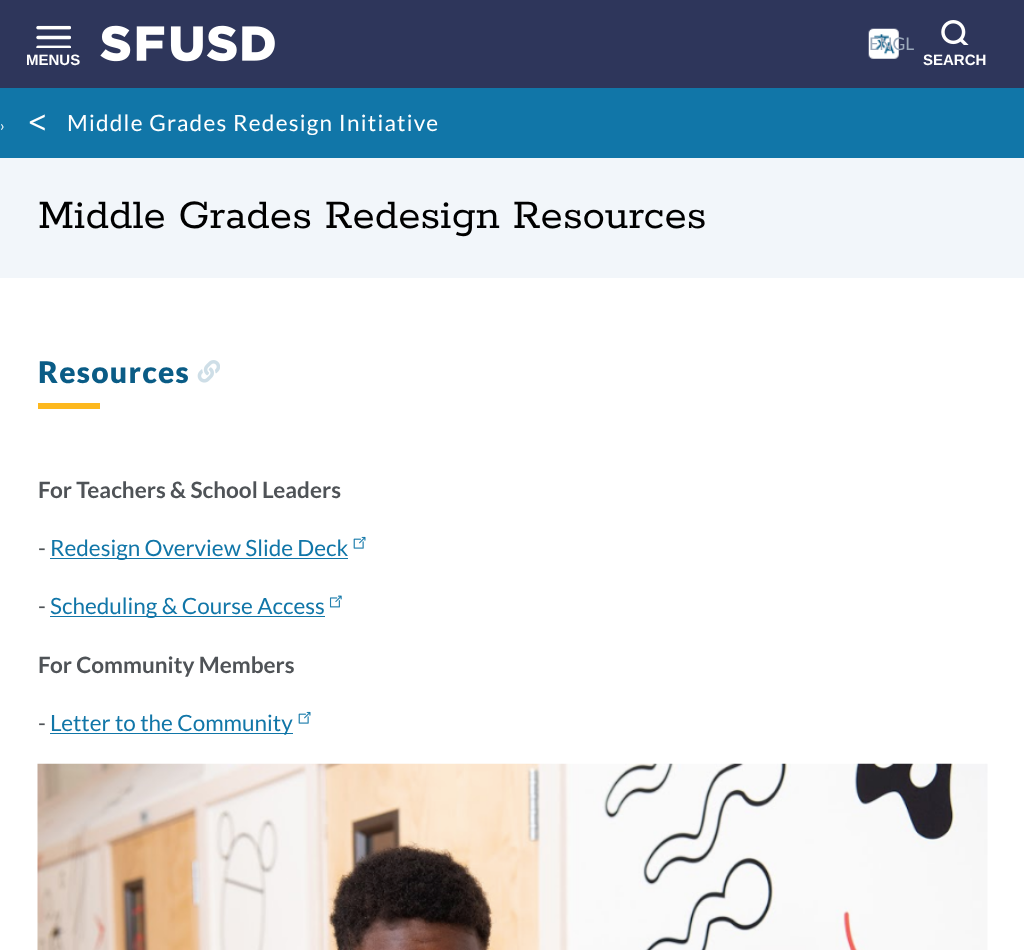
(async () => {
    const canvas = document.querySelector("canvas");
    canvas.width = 1024;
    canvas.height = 950;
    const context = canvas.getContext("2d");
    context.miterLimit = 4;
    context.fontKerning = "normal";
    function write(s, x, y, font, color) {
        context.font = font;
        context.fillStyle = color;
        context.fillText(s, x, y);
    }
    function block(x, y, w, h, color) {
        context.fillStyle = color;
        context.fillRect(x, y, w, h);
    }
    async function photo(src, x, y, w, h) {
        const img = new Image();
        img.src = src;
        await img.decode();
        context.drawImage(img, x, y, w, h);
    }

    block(0, 0, 1024, 950, "rgb(255, 255, 255)");
    block(0, 0, 1024, 88, "rgb(46, 54, 91)");
    await photo("media/1.png", 100, 25, 175, 37);
    await photo("media/2.png", 868, 28, 31, 31);
    write("ENGL", 869, 50, "17.5px Lato", "rgb(155, 169, 187)");
    await photo("media/3.png", 36, 25, 35, 23);
    write("MENUS", 26, 65, "bold 15px Liberation Sans", "rgb(255, 255, 255)");
    await photo("media/4.png", 941, 20, 28, 25);
    write("SEARCH", 923, 65, "bold 15px Liberation Sans", "rgb(255, 255, 255)");
    block(0, 158, 1024, 120, "rgb(242, 246, 250)");
    block(0, 88, 1024, 70, "rgb(17, 118, 168)");
    context.letterSpacing = "1.25px";
    write("›", 0, 131, "15px Lato", "rgb(255, 255, 255)");
    context.letterSpacing = "-5px";
    write("<", 28, 135, "42px Rokkitt", "rgb(255, 255, 255)");
    context.letterSpacing = "1.25px";
    write("Middle Grades Redesign Initiative", 67, 131, "22.5px Lato", "rgb(255, 255, 255)");
    context.letterSpacing = "0px";
    write("Middle Grades Redesign Resources", 38, 228, "45px Rokkitt", "rgb(0, 0, 0)");
    context.letterSpacing = "1.25px";
    write("Resources", 38, 383, "900 30px Lato", "rgb(10, 92, 134)");
    await photo("media/5.png", 197, 360, 23, 23);
    block(38, 403, 62, 6, "rgb(253, 184, 30)");
    context.letterSpacing = "0px";
    write("For Teachers & School Leaders", 38, 498, "bold 22.5px Lato", "rgb(79, 83, 87)");
    write("-", 38, 556, "22.5px Lato", "rgb(79, 83, 87)");
    block(50, 558, 298, 1, "rgb(17, 118, 168)");
    write("Redesign Overview Slide Deck", 50, 556, "22.5px Lato", "rgb(17, 118, 168)");
    await photo("media/6.png", 353, 536, 13, 13);
    write("-", 38, 614, "22.5px Lato", "rgb(79, 83, 87)");
    block(50, 616, 275, 1, "rgb(17, 118, 168)");
    write("Scheduling & Course Access", 50, 614, "22.5px Lato", "rgb(17, 118, 168)");
    await photo("media/7.png", 329, 595, 13, 13);
    write("For Community Members", 38, 673, "bold 22.5px Lato", "rgb(79, 83, 87)");
    write("-", 38, 731, "22.5px Lato", "rgb(79, 83, 87)");
    block(50, 733, 243, 1, "rgb(17, 118, 168)");
    write("Letter to the Community", 50, 731, "22.5px Lato", "rgb(17, 118, 168)");
    await photo("media/6.png", 298, 711, 13, 13);
    await photo("media/8.png", 37, 763, 951, 187);
})();
